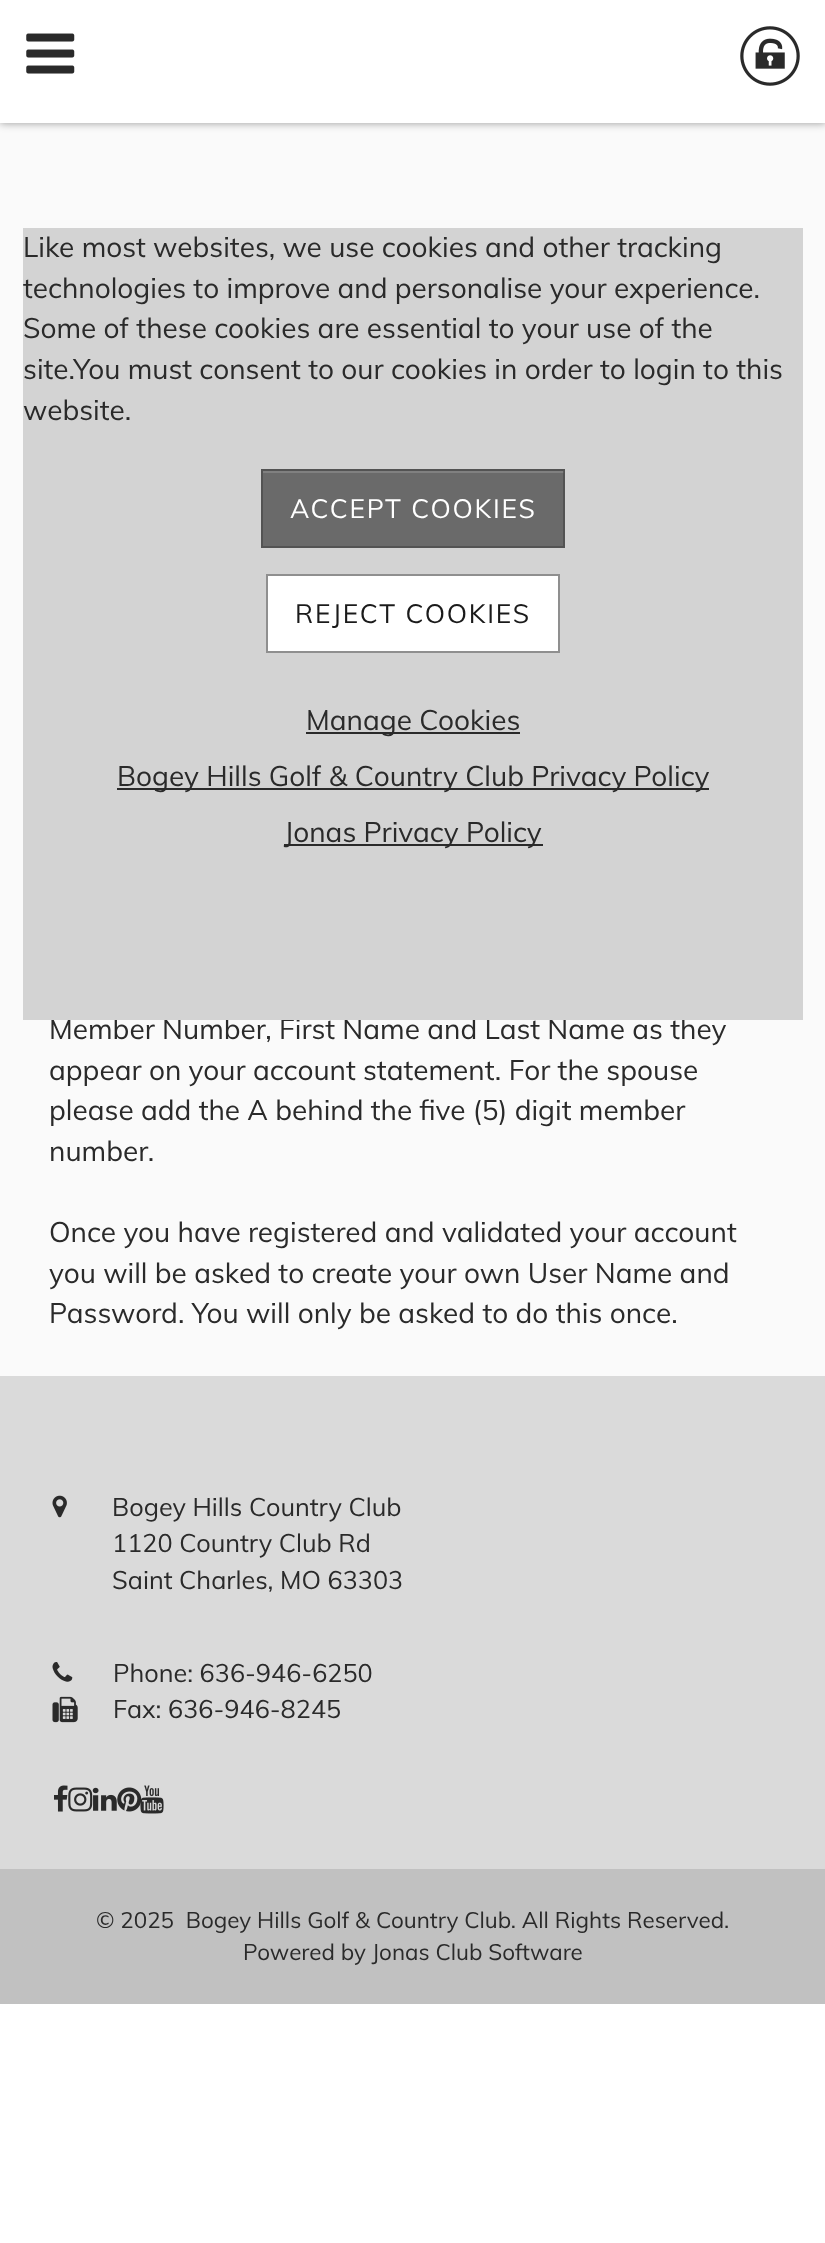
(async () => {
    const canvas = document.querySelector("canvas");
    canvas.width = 825;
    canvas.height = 2243;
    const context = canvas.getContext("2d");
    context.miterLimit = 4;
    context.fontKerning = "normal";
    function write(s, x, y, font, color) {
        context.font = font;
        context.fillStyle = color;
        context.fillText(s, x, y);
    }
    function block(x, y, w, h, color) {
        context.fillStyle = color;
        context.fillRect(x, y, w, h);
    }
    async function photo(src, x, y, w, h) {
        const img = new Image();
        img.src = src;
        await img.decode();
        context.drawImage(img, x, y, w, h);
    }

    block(0, 0, 825, 2243, "rgb(255, 255, 255)");
    block(0, 123, 825, 1253, "rgb(250, 250, 250)");
    context.fillStyle = "rgba(0, 0, 0, 0.4)";
    context.filter = "blur(4.5px)";
    context.beginPath();
    context.rect(0, 0, 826, 123);
    context.fill();
    context.filter = "none";
    block(0, 0, 825, 123, "rgb(255, 255, 255)");
    await photo("media/1.png", 26, 33, 49, 41);
    await photo("media/2.png", 740, 26, 60, 60);
    write("Member Number, First Name and Last Name as they", 49, 1039, "28px Muli", "rgb(42, 42, 42)");
    block(23, 228, 780, 792, "rgb(211, 211, 211)");
    write("Like most websites, we use cookies and other tracking", 23, 257, "28px Muli", "rgb(42, 42, 42)");
    write("technologies to improve and personalise your experience.", 23, 298, "28px Muli", "rgb(42, 42, 42)");
    write("Some of these cookies are essential to your use of the", 23, 338, "28px Muli", "rgb(42, 42, 42)");
    write("site.You must consent to our cookies in order to login to this", 23, 379, "28px Muli", "rgb(42, 42, 42)");
    write("website.", 23, 420, "28px Muli", "rgb(42, 42, 42)");
    block(261, 469, 304, 79, "rgb(106, 106, 106)");
    block(263, 471, 301, 2, "rgb(128, 128, 128)");
    context.strokeStyle = "rgba(69, 69, 69, 0.6)";
    context.lineWidth = 2;
    context.strokeRect(262, 470, 302, 77);
    context.letterSpacing = "1.75px";
    write("ACCEPT COOKIES", 290, 518, "26.25px Muli", "rgb(255, 255, 255)");
    context.beginPath();
    context.rect(267, 575, 292, 77);
    context.fill();
    context.strokeStyle = "rgb(143, 143, 143)";
    context.stroke();
    write("REJECT COOKIES", 295, 623, "26.25px Muli", "rgb(26, 26, 26)");
    block(306, 732, 214, 2, "rgb(42, 42, 42)");
    context.letterSpacing = "0px";
    write("Manage Cookies", 306, 730, "28px Muli", "rgb(42, 42, 42)");
    block(117, 788, 592, 2, "rgb(42, 42, 42)");
    write("Bogey Hills Golf & Country Club Privacy Policy", 117, 786, "28px Muli", "rgb(42, 42, 42)");
    block(284, 844, 259, 2, "rgb(42, 42, 42)");
    write("Jonas Privacy Policy", 284, 842, "28px Muli", "rgb(42, 42, 42)");
    write("appear on your account statement. For the spouse", 49, 1080, "28px Muli", "rgb(42, 42, 42)");
    write("please add the A behind the five (5) digit member", 49, 1120, "28px Muli", "rgb(42, 42, 42)");
    write("number.", 49, 1161, "28px Muli", "rgb(42, 42, 42)");
    write("Once you have registered and validated your account", 49, 1242, "28px Muli", "rgb(42, 42, 42)");
    write("you will be asked to create your own User Name and", 49, 1283, "28px Muli", "rgb(42, 42, 42)");
    write("Password. You will only be asked to do this once.", 49, 1323, "28px Muli", "rgb(42, 42, 42)");
    block(0, 1376, 825, 493, "rgb(218, 218, 218)");
    await photo("media/3.png", 52, 1495, 15, 23);
    write("Bogey Hills Country Club", 112, 1516, "25.25px Muli", "rgb(42, 42, 42)");
    write("1120 Country Club Rd", 112, 1552, "25.25px Muli", "rgb(42, 42, 42)");
    write("Saint Charles, MO 63303", 112, 1589, "25.25px Muli", "rgb(42, 42, 42)");
    await photo("media/4.png", 52, 1662, 21, 20);
    write("Phone: 636-946-6250", 113, 1682, "25.25px Muli", "rgb(42, 42, 42)");
    await photo("media/5.png", 52, 1696, 26, 27);
    write("Fax: 636-946-8245", 113, 1718, "25.25px Muli", "rgb(42, 42, 42)");
    await photo("media/6.png", 54, 1785, 14, 27);
    await photo("media/7.png", 68, 1787, 25, 25);
    await photo("media/8.png", 92, 1787, 25, 24);
    await photo("media/9.png", 117, 1787, 25, 25);
    await photo("media/10.png", 140, 1785, 24, 29);
    block(0, 1869, 825, 135, "rgb(193, 193, 193)");
    write("© 2025  Bogey Hills Golf & Country Club. All Rights Reserved.", 96, 1928, "22.4px Muli", "rgb(42, 42, 42)");
    write("Powered by Jonas Club Software", 243, 1960, "22.4px Muli", "rgb(42, 42, 42)");
})();
